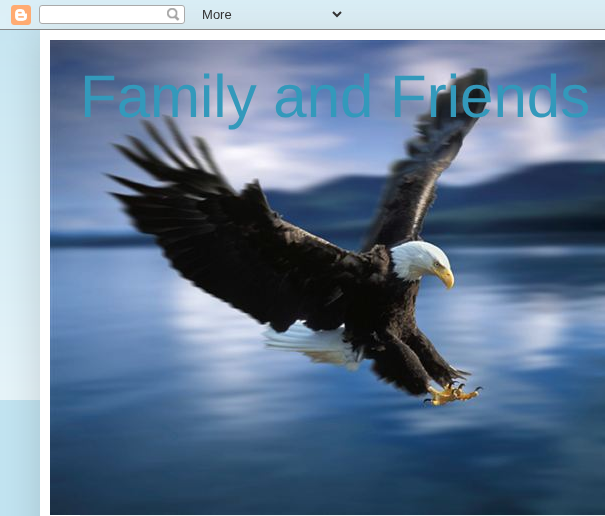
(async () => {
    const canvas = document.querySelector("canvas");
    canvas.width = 605;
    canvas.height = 516;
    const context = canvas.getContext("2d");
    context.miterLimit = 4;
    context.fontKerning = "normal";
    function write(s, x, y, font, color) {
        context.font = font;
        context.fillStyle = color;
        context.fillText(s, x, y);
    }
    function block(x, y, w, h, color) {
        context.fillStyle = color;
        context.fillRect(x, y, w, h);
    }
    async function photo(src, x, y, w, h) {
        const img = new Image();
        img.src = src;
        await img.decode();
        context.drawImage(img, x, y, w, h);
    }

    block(0, 0, 605, 516, "rgb(194, 228, 241)");
    await photo("media/2.png", 0, 10, 605, 390);
    context.fillStyle = "rgba(0, 0, 0, 0.15)";
    context.filter = "blur(20px)";
    context.beginPath();
    context.rect(40, 30, 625, 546);
    context.fill();
    context.filter = "none";
    await photo("media/1.png", 0, 0, 605, 30);
    block(40, 30, 565, 486, "rgb(255, 255, 255)");
    await photo("media/3.png", 50, 40, 555, 475);
    write("Family and Friends", 80, 117, "60px Liberation Sans", "rgb(51, 153, 187)");
    block(80, 515, 525, 1, "rgb(238, 238, 238)");
})();
